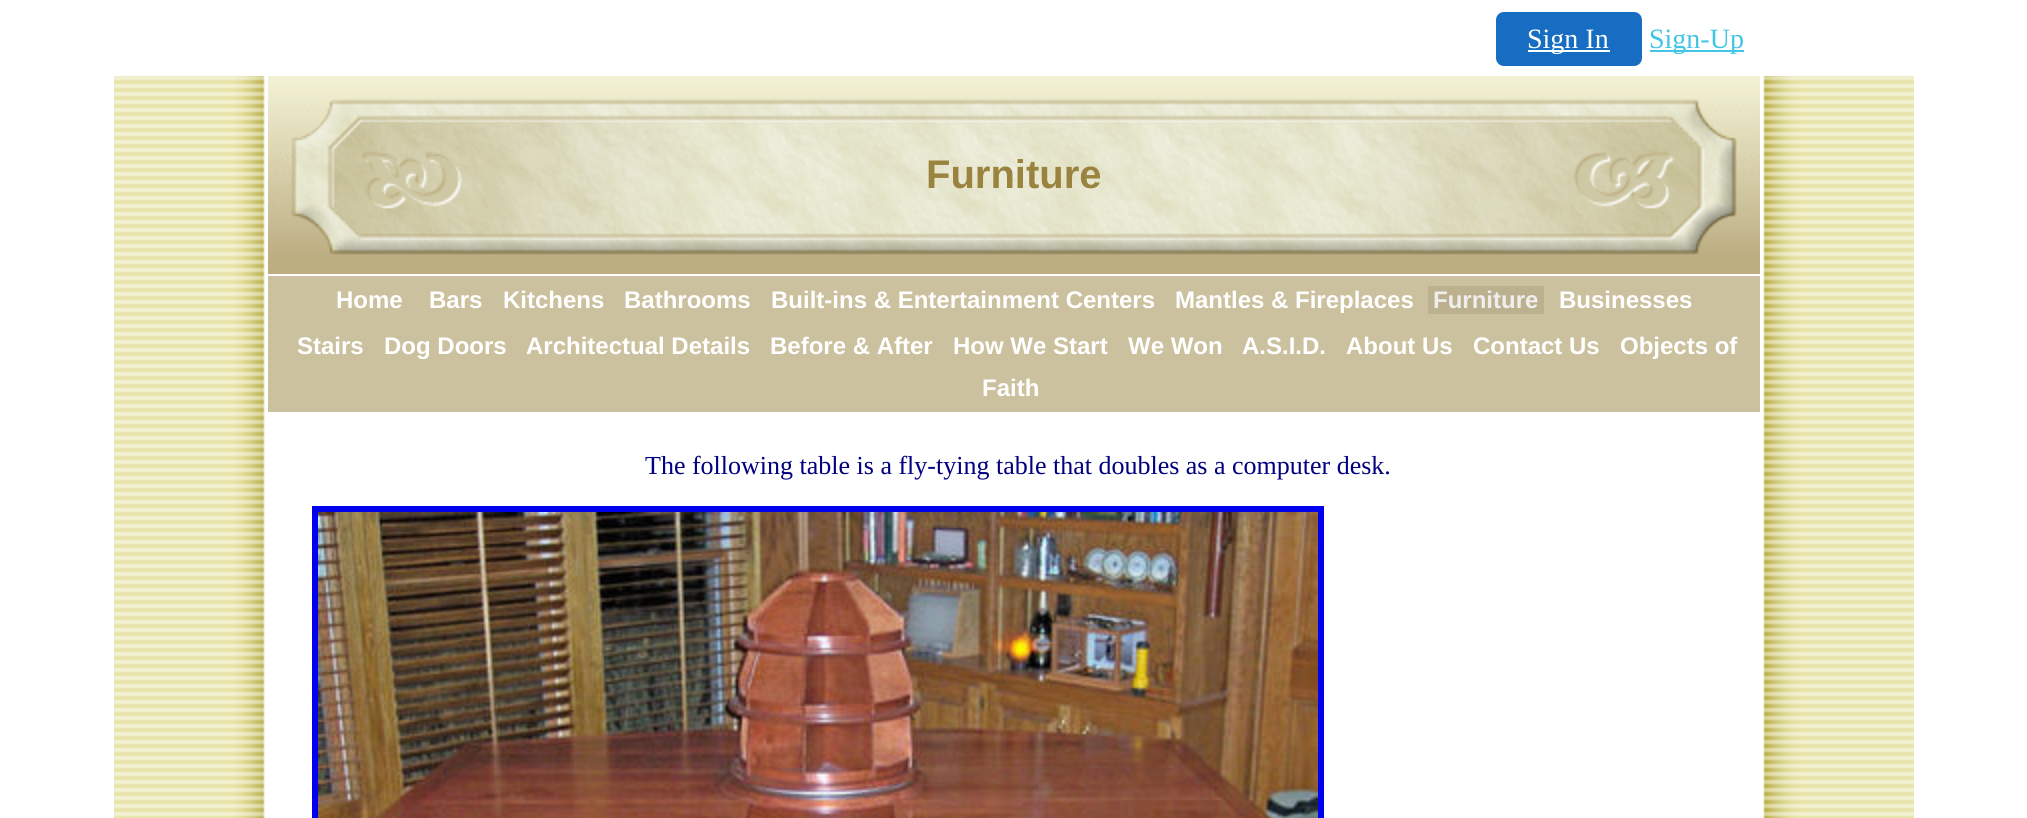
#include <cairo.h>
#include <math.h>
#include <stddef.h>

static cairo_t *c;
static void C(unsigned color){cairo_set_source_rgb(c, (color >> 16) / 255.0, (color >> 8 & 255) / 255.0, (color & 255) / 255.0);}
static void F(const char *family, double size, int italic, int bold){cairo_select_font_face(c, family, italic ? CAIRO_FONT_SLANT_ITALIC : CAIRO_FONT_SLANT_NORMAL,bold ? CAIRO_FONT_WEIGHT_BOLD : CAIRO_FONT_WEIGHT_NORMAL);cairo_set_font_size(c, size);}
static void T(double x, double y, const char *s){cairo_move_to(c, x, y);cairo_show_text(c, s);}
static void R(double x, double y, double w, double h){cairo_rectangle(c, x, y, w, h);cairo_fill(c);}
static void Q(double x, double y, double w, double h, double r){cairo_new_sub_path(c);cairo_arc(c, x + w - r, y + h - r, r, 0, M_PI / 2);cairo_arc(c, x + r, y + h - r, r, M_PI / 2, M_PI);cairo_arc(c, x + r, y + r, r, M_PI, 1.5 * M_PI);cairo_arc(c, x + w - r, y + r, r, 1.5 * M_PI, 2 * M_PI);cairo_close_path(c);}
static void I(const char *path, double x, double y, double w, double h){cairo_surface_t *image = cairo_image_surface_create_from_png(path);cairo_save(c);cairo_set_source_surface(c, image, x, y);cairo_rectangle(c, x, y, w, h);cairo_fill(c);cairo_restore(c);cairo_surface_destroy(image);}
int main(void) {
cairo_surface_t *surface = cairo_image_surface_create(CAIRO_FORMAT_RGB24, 2027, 818);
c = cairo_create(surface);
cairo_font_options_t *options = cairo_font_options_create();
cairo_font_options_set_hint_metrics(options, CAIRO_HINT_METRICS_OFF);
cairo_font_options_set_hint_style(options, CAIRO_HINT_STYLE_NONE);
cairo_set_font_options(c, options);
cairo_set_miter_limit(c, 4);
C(0xffffff);
cairo_paint(c);
C(0x166dc2);
Q(1497,13,144,52,7);
cairo_fill_preserve(c);
cairo_stroke(c);
C(0xffffff);
R(1528,50,82,2);
F("Liberation Serif",28,0,0);
T(1527,48,"Sign In");
C(0x41c5e4);
R(1650,50,94,2);
T(1649,48,"Sign-Up");
I("1.png",114,76,1800,742);
I("2.png",268,76,1492,198);
F("Liberation Sans",40,0,1);
C(0x99833e);
T(926,188,"Furniture");
C(0xccc19e);
R(268,276,1492,136);
F("Liberation Sans",24,0,1);
C(0xffffff);
T(336,308,"Home");
T(429,308,"Bars");
T(503,308,"Kitchens");
T(624,308,"Bathrooms");
T(771,308,"Built-ins & Entertainment Centers");
T(1175,308,"Mantles & Fireplaces");
C(0xbcb18e);
R(1428,286,116,28);
C(0xeeeeee);
T(1433,308,"Furniture");
C(0xffffff);
T(1559,308,"Businesses");
T(297,354,"Stairs");
T(384,354,"Dog Doors");
T(526,354,"Architectual Details");
T(770,354,"Before & After");
T(953,354,"How We Start");
T(1128,354,"We Won");
T(1242,354,"A.S.I.D.");
T(1346,354,"About Us");
T(1473,354,"Contact Us");
T(1620,354,"Objects of");
T(982,396,"Faith");
F("Liberation Serif",26,0,0);
C(0x000080);
T(645,474,"The following table is a fly-tying table that doubles as a computer desk.");
cairo_rectangle(c,315,509,1006,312);
C(0x0000ee);
cairo_set_line_width(c,6);
cairo_stroke(c);
I("3.png",318,512,1000,306);
cairo_surface_write_to_png(surface, "o.png");
cairo_font_options_destroy(options);
cairo_destroy(c);
cairo_surface_destroy(surface);
return 0;
}
